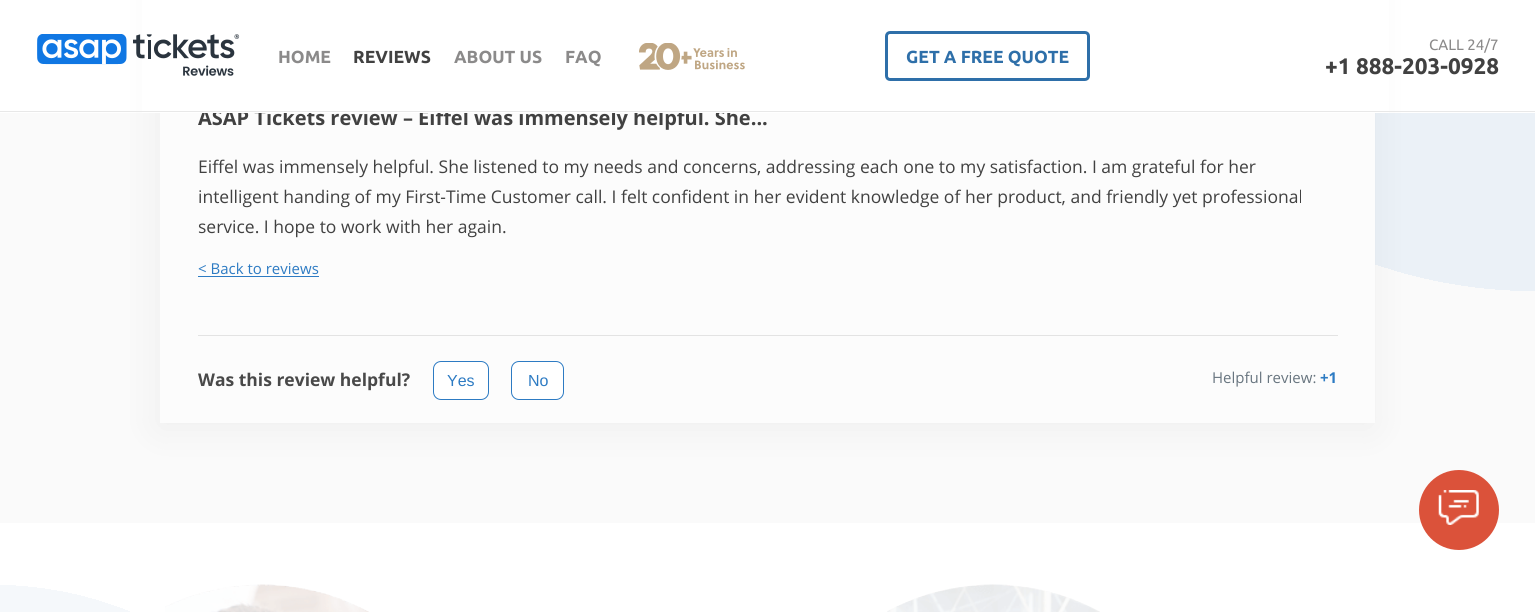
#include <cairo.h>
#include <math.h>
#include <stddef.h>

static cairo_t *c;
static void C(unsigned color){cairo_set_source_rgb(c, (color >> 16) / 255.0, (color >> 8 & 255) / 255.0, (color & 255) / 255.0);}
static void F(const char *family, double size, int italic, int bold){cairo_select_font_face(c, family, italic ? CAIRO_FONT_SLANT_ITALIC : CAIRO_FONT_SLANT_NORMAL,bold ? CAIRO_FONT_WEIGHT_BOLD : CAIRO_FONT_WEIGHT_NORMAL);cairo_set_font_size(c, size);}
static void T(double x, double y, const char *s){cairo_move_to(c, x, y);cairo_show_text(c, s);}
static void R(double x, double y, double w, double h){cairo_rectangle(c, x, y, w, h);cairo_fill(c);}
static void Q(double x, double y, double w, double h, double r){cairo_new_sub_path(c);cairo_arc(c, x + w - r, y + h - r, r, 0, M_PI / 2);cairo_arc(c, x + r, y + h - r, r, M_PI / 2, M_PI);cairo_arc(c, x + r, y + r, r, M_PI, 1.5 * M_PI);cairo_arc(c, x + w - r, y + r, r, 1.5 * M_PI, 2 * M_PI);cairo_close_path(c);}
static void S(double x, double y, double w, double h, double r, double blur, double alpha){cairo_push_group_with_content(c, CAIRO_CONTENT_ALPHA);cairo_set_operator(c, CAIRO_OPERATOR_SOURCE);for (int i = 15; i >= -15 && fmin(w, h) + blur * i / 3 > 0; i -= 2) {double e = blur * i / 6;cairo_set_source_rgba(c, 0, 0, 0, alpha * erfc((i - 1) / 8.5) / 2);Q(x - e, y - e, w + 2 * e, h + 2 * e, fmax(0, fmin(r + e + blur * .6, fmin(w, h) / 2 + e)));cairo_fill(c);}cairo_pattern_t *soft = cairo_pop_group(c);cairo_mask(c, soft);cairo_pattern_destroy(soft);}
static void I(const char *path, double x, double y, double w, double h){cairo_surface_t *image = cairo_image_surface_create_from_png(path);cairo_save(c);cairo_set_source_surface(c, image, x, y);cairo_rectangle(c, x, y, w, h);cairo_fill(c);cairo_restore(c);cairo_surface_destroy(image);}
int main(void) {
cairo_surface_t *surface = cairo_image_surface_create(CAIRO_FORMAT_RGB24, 1535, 612);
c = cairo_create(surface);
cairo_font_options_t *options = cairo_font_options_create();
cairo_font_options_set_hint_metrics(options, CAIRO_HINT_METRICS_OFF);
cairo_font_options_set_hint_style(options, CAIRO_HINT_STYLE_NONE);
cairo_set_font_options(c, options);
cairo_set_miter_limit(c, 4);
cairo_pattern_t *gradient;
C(0xffffff);
cairo_paint(c);
gradient = cairo_pattern_create_radial(1535,-201,0,1535,-201,1697);
cairo_pattern_add_color_stop_rgba(gradient,.29,0.922,0.945,0.969,1);
cairo_pattern_add_color_stop_rgba(gradient,.29,0.98,0.98,0.98,1);
cairo_set_source(c,gradient);
cairo_pattern_destroy(gradient);
R(0,113,1535,410);
C(0x000000);
S(158,-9,1215,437,0,19,.05);
C(0xfcfcfc);
R(160,113,1215,310);
F("Open Sans",20,0,1);
C(0x414141);
T(198,125,"ASAP Tickets review – Eiffel was immensely helpful. She...");
C(0xffffff);
R(142,0,1247,113);
C(0xe8e8e8);
R(0,111,1535,1);
I("1.png",37,34,203,42);
F("Ubuntu",17.5,0,1);
C(0x8b8a8a);
T(278,63,"HOME");
C(0x414141);
T(353,63,"REVIEWS");
C(0x8b8a8a);
T(454,63,"ABOUT US");
T(565,63,"FAQ");
I("2.png",639,43,106,27);
Q(886.5,32.5,202,47,3.5);
C(0x2e6fa9);
cairo_set_line_width(c,3);
cairo_stroke(c);
T(906,63,"GET A FREE QUOTE");
F("Ubuntu",15,0,0);
C(0x8b8a8a);
T(1429,50,"CALL 24/7");
F("Ubuntu",22.5,0,1);
C(0x414141);
T(1325,74,"+1 888-203-0928");
F("Open Sans",17.5,0,0);
T(198,173,"Eiffel was immensely helpful. She listened to my needs and concerns, addressing each one to my satisfaction. I am grateful for her");
T(198,203,"intelligent handing of my First-Time Customer call. I felt confident in her evident knowledge of her product, and friendly yet professional");
T(198,233,"service. I hope to work with her again.");
F("Open Sans",15,0,0);
C(0x2d7bc3);
T(198,274,"< Back to reviews");
R(198,276,121,1);
C(0xe3e3e3);
R(198,335,1140,1);
F("Open Sans",17.5,0,1);
C(0x494949);
T(198,386,"Was this review helpful?");
C(0xffffff);
Q(433.5,361.5,55,38,7.5);
cairo_fill_preserve(c);
C(0x2d7bc3);
cairo_set_line_width(c,1);
cairo_stroke(c);
F("Liberation Sans",16,0,0);
T(447,386,"Yes");
C(0xffffff);
Q(511.5,361.5,52,38,7.5);
cairo_fill_preserve(c);
C(0x2d7bc3);
cairo_stroke(c);
T(528,386,"No");
F("Open Sans",15,0,0);
C(0x68757f);
T(1212,383,"Helpful review:");
F("Open Sans",15,0,1);
C(0x2d7bc3);
T(1320,383,"+1");
C(0xdb523a);
cairo_new_path(c);
cairo_arc(c,1459,510,40,0,2 * M_PI);
cairo_fill(c);
I("3.png",1438,490,41,35);
gradient = cairo_pattern_create_radial(-7.5,953,0,-7.5,953,1601);
cairo_pattern_add_color_stop_rgba(gradient,.23,0.961,0.973,0.984,1);
cairo_pattern_add_color_stop_rgba(gradient,.23,1,1,1,1);
cairo_set_source(c,gradient);
cairo_pattern_destroy(gradient);
R(0,585,131,27);
I("4.png",165,584,204,28);
I("5.png",887,584,213,28);
cairo_surface_write_to_png(surface, "o.png");
cairo_font_options_destroy(options);
cairo_destroy(c);
cairo_surface_destroy(surface);
return 0;
}
